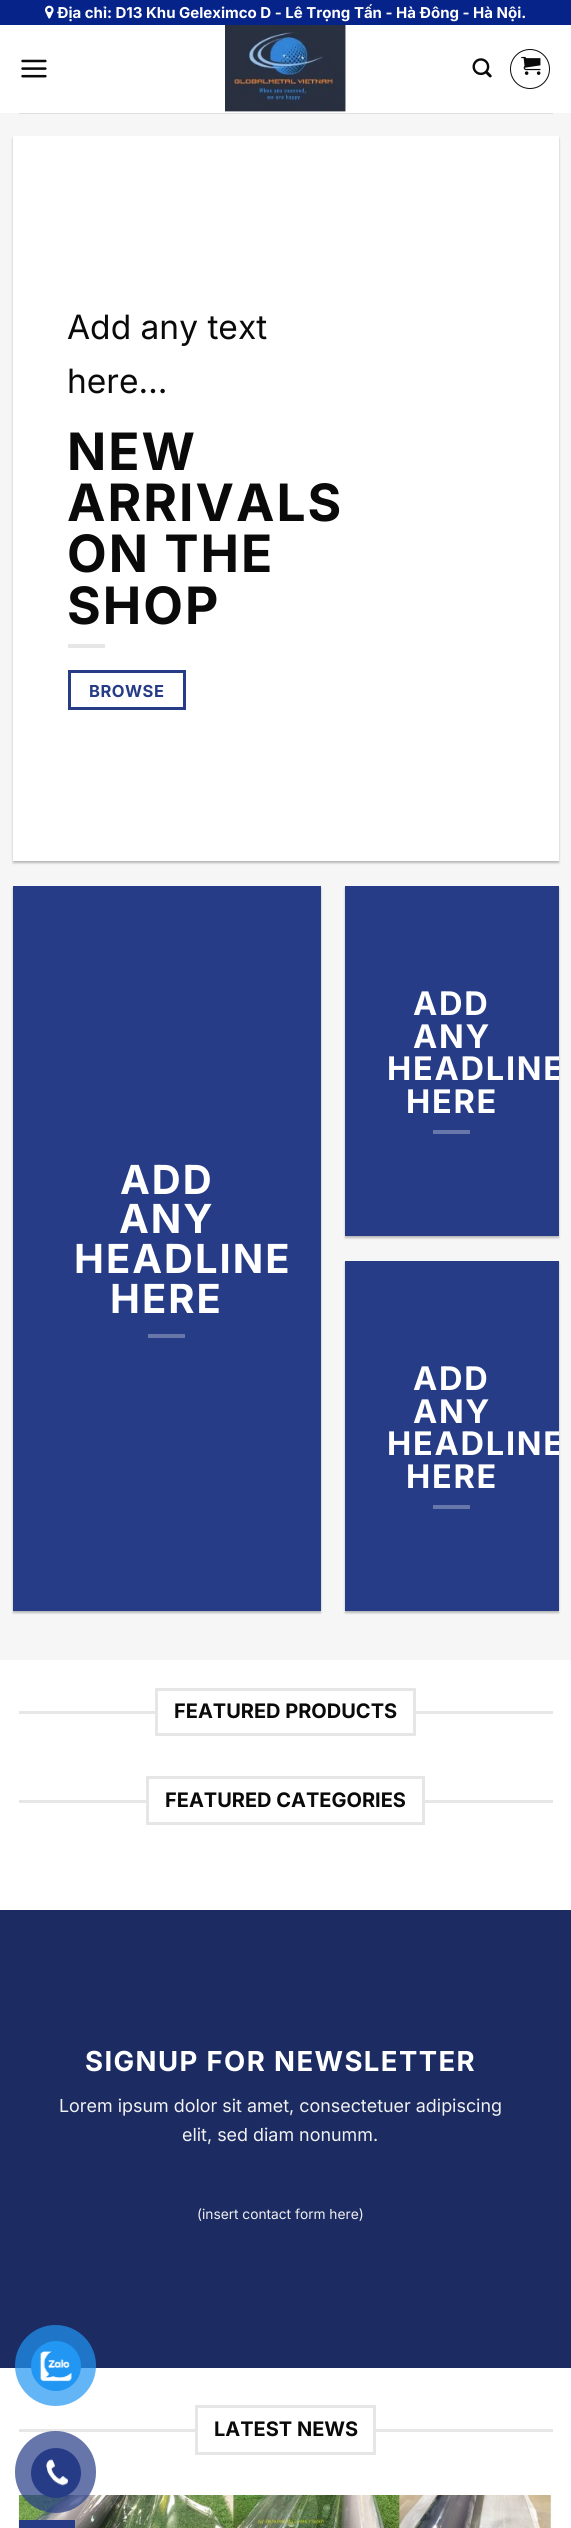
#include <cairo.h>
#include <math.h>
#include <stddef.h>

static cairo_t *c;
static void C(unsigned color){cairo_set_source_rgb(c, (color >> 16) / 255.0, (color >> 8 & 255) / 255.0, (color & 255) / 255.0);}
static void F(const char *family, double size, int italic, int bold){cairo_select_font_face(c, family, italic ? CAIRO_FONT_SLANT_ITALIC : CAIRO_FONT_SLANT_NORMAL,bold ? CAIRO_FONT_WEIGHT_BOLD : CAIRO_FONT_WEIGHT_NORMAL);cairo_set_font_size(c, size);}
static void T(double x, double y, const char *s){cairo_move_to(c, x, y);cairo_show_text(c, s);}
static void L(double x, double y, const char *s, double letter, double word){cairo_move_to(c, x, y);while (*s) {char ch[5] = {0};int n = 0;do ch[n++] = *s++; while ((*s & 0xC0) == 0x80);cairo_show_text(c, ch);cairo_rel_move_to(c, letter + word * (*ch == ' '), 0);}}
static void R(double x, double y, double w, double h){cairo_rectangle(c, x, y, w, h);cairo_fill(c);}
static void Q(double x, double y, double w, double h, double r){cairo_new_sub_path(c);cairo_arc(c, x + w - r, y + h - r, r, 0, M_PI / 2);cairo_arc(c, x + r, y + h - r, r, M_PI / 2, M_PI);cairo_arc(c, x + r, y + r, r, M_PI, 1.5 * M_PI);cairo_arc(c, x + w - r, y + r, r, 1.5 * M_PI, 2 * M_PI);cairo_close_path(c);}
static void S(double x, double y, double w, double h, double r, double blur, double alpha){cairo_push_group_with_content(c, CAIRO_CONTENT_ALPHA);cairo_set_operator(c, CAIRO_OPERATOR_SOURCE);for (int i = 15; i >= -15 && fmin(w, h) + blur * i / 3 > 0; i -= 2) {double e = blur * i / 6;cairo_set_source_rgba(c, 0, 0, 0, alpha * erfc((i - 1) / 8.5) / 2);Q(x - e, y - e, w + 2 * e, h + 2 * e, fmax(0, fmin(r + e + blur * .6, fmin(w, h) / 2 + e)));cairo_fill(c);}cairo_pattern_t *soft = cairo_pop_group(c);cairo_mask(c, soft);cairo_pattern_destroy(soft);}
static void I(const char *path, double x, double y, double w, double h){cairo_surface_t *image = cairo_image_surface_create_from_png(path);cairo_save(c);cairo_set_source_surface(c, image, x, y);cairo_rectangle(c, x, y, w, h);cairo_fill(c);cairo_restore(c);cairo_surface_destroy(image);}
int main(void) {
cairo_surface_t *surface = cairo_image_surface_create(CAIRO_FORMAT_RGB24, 571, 2528);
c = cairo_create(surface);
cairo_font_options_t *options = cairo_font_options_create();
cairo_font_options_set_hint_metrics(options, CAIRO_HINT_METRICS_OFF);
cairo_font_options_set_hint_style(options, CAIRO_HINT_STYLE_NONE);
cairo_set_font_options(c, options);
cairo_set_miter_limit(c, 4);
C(0xffffff);
cairo_paint(c);
C(0x1c2c63);
R(0,1910,571,458);
cairo_set_source_rgba(c,0.129,0.588,0.953,0.7);
cairo_arc(c,55.5,2365.5,40.5,0,2 * M_PI);
cairo_fill(c);
C(0x2196f3);
cairo_arc(c,56,2366,25,0,2 * M_PI);
cairo_fill(c);
I("1.png",39,2351,33,31);
C(0xe7e7e7);
R(19,2429,176,3);
I("8.png",18,2495,534,33);
cairo_set_source_rgba(c,0.149,0.235,0.529,0.7);
Q(15,2431,81,82,40.5);
cairo_fill(c);
C(0x263c87);
cairo_arc(c,56,2473,25,0,2 * M_PI);
cairo_fill(c);
I("2.png",46,2459,22,27);
C(0x06238a);
R(0,0,571,25);
I("3.png",45,5,9,14);
F("Inter",15,0,1);
C(0xffffff);
T(57,18,"Địa chỉ: D13 Khu Geleximco D - Lê Trọng Tấn - Hà Đông - Hà Nội.");
I("4.png",21,59,26,19);
I("5.png",225,25,121,88);
I("6.png",472,58,20,20);
cairo_arc(c,530,69,19.5,0,2 * M_PI);
C(0x0a0a0a);
cairo_set_line_width(c,1);
cairo_stroke(c);
I("7.png",521,56,20,19);
C(0xf6f6f6);
R(0,113,571,1547);
C(0xdedede);
R(19,113,534,1);
C(0x000000);
S(13,138,546,725,0,1,.24);
S(15,140,541,720,0,2,.12);
C(0xffffff);
R(13,136,546,725);
F("Inter",33.5,0,0);
C(0x0a0a0a);
T(67,339,"Add any text");
T(67,393,"here…");
F("Inter",51.5,0,1);
L(67,470,"NEW",2,0);
L(67,521,"ARRIVALS",2,0);
L(67,572,"ON THE",2,0);
L(67,624,"SHOP",2,0);
C(0xe6e6e6);
R(68,644,37,4);
cairo_rectangle(c,69.5,671.5,115,37);
C(0x263c86);
cairo_set_line_width(c,3);
cairo_stroke(c);
F("Inter",16.5,0,1);
L(89,697,"BROWSE",.5,0);
C(0x000000);
S(345,888,214,350,0,1,.24);
S(348,890,208,345,0,2,.12);
C(0x263c86);
R(345,886,214,350);
F("Inter",32.5,0,1);
C(0xffffff);
L(413,1015,"ADD",1.75,0);
L(413,1048,"ANY",1.75,0);
cairo_save(c);
cairo_rectangle(c,345,886,214,350);
cairo_clip(c);
L(387,1080,"HEADLINE",1.75,0);
cairo_restore(c);
L(406,1113,"HERE",1.75,0);
C(0x6777aa);
R(433,1130,37,4);
C(0x000000);
S(13,888,308,725,0,1,.24);
S(15,890,304,720,0,2,.12);
C(0x263c86);
R(13,886,308,725);
F("Inter",40,0,1);
C(0xffffff);
L(120,1194,"ADD",2,0);
L(119,1233,"ANY",2,0);
L(74,1273,"HEADLINE",2,0);
L(110,1313,"HERE",2,0);
C(0x6777aa);
R(148,1334,37,4);
C(0x000000);
S(345,1263,214,350,0,1,.24);
S(348,1265,208,345,0,2,.12);
C(0x263c86);
R(345,1261,214,350);
F("Inter",32.5,0,1);
C(0xffffff);
L(413,1390,"ADD",1.75,0);
L(413,1423,"ANY",1.75,0);
cairo_save(c);
cairo_rectangle(c,345,1261,214,350);
cairo_clip(c);
L(387,1455,"HEADLINE",1.75,0);
cairo_restore(c);
L(406,1488,"HERE",1.75,0);
C(0x6777aa);
R(433,1505,37,4);
C(0xe7e7e7);
R(19,1711,136,3);
cairo_rectangle(c,156.5,1689.5,258,45);
C(0xe6e6e6);
cairo_stroke(c);
F("Inter",20,0,1);
C(0x0a0a0a);
T(174,1718,"FEATURED PRODUCTS");
C(0xe7e7e7);
R(416,1711,137,3);
R(19,1800,127,3);
cairo_rectangle(c,147.5,1777.5,276,46);
C(0xe6e6e6);
cairo_stroke(c);
C(0x0a0a0a);
T(165,1807,"FEATURED CATEGORIES");
C(0xe7e7e7);
R(425,1800,128,3);
F("Inter",27.5,0,1);
C(0xffffff);
L(85,2071,"SIGNUP FOR NEWSLETTER",1.4,0);
F("Inter",17.9,0,0);
C(0xf1f1f1);
T(59,2112,"Lorem ipsum dolor sit amet, consectetuer adipiscing");
T(182,2141,"elit, sed diam nonumm.");
F("Inter",13.75,0,0);
T(197,2219,"(insert contact form here)");
cairo_rectangle(c,196.5,2406.5,178,47);
C(0xe6e6e6);
cairo_stroke(c);
F("Inter",20,0,1);
C(0x0a0a0a);
T(214,2436,"LATEST NEWS");
C(0xe7e7e7);
R(376,2429,177,3);
C(0x263c86);
R(19,2520,56,8);
cairo_surface_write_to_png(surface, "o.png");
cairo_font_options_destroy(options);
cairo_destroy(c);
cairo_surface_destroy(surface);
return 0;
}
